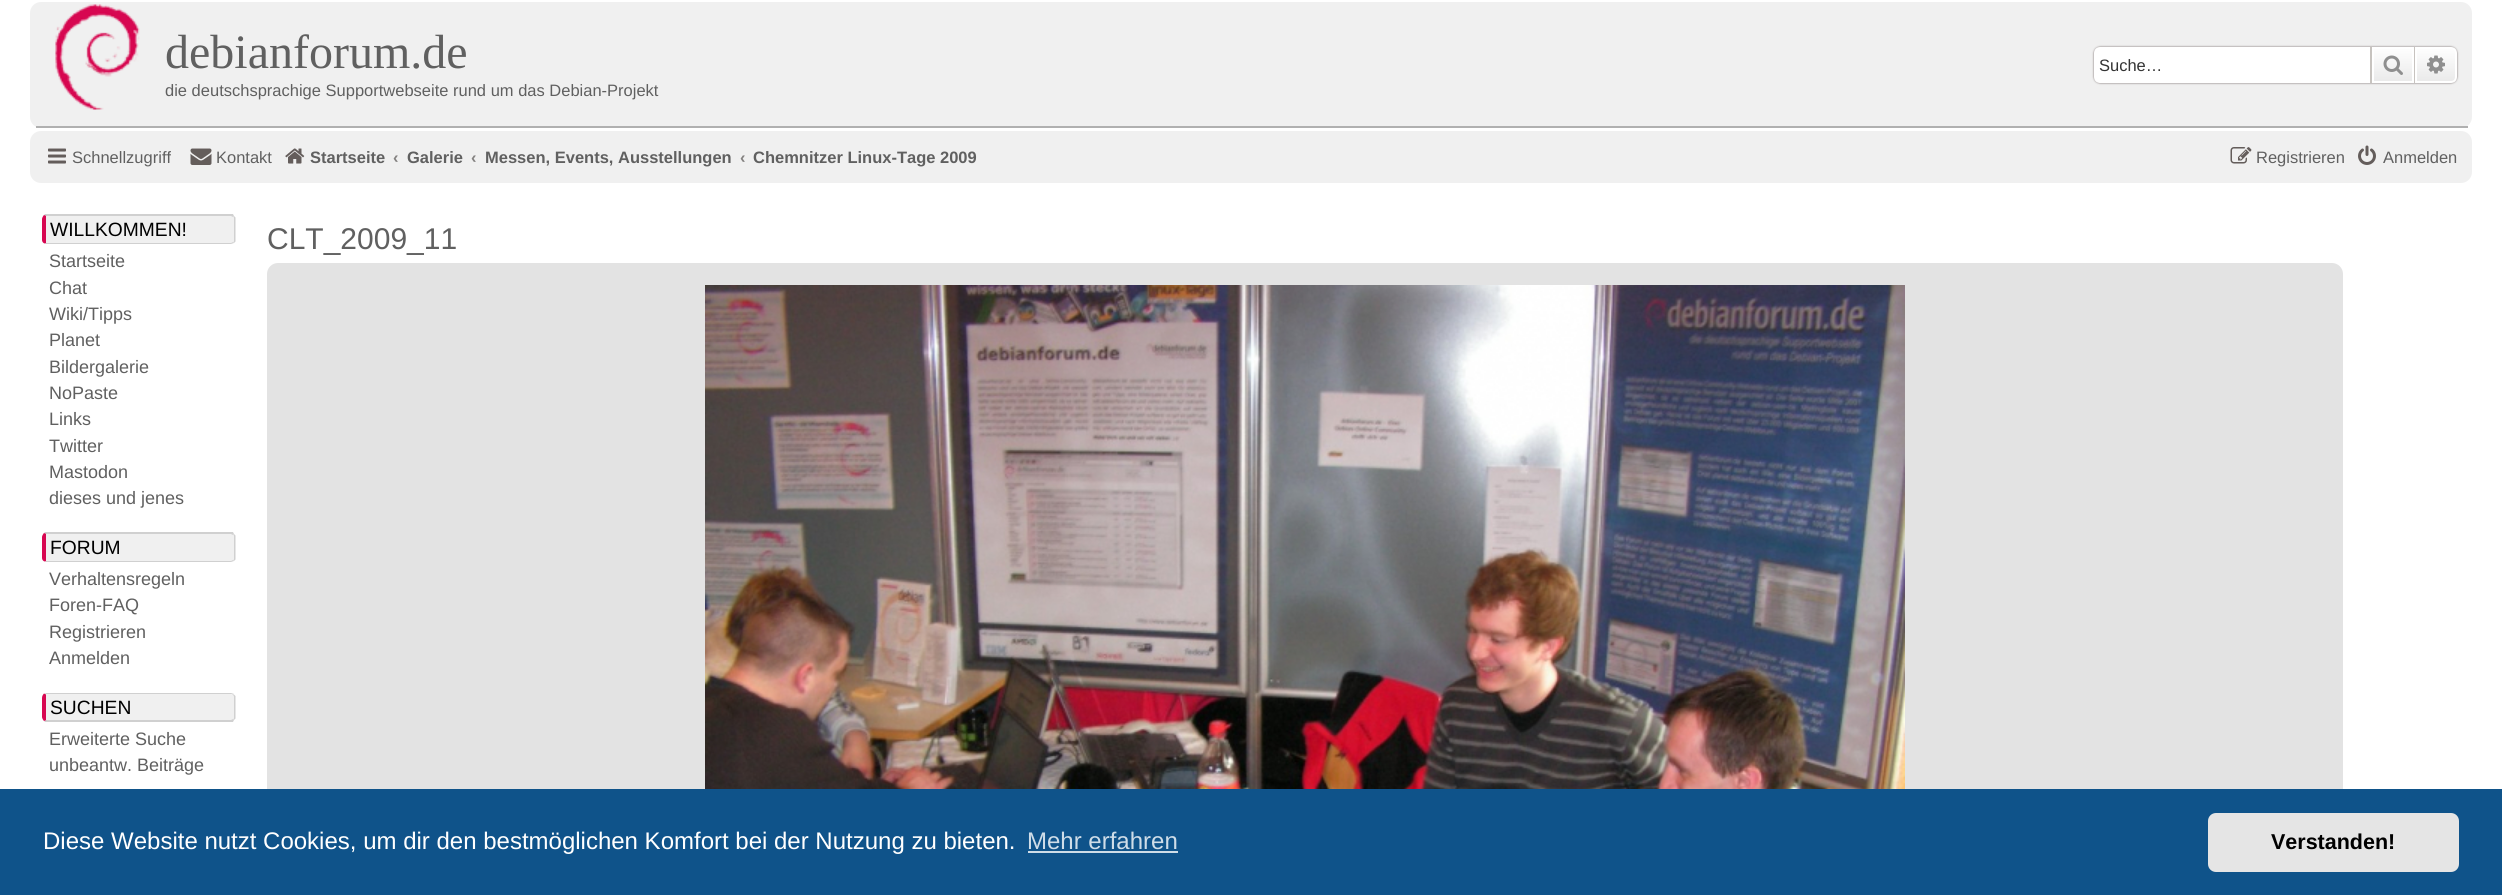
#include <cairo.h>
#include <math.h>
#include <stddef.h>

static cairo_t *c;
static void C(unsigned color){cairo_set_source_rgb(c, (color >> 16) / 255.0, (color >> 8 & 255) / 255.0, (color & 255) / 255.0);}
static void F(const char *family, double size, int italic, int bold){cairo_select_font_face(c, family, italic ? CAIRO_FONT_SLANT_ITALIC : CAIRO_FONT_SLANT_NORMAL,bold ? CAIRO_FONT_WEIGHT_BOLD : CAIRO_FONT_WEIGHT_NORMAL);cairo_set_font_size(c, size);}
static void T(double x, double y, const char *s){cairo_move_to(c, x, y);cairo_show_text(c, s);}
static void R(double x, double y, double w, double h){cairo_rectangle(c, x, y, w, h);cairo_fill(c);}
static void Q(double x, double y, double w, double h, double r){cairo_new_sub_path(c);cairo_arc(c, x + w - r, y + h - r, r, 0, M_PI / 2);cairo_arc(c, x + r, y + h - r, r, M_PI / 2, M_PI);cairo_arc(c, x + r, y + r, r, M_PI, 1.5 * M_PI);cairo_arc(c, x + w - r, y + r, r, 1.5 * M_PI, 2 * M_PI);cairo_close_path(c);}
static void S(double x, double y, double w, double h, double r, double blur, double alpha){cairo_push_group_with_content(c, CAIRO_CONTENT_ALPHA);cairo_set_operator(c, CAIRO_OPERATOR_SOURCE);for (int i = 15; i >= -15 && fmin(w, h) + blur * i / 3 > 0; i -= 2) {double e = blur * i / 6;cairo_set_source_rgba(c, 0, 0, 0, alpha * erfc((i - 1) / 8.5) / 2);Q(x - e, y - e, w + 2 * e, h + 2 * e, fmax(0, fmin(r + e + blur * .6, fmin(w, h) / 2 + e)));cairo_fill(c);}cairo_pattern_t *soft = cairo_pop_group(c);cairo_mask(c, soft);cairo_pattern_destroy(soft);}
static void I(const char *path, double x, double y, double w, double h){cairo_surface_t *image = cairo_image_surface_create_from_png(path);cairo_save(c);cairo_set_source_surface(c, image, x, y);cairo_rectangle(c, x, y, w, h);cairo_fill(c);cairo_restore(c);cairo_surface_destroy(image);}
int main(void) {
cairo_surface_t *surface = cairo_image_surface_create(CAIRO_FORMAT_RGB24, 2502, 895);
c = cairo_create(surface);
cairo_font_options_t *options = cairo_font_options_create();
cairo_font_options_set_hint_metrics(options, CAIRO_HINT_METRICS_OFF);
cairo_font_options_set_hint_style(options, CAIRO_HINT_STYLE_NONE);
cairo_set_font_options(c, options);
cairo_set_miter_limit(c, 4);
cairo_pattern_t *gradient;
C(0xffffff);
cairo_paint(c);
C(0xf0f0f0);
Q(30,2,2442,126,11);
cairo_fill(c);
C(0xb0b0b0);
R(36,126,2432,2);
I("1.png",55,4,85,106);
F("Liberation Serif",48,0,0);
C(0x606060);
T(165,68,"debianforum.de");
F("Liberation Sans",16.5,0,0);
T(165,96,"die deutschsprachige Supportwebseite rund um das Debian-Projekt");
C(0x746867);
S(2094,47,363,36,6,1,1);
C(0xffffff);
cairo_new_path(c);
cairo_move_to(c,2100,47);
cairo_line_to(c,2370,47);
cairo_line_to(c,2370,83);
cairo_line_to(c,2100,83);
cairo_curve_to(c,2096.5,83,2094,80.5,2094,77);
cairo_line_to(c,2094,53);
cairo_curve_to(c,2094,49.5,2096.5,47,2100,47);
cairo_close_path(c);
cairo_fill(c);
C(0x333333);
T(2099,71,"Suche…");
gradient = cairo_pattern_create_linear(2393,47,2393,83);
cairo_pattern_add_color_stop_rgba(gradient,0,1,1,1,1);
cairo_pattern_add_color_stop_rgba(gradient,1,0.914,0.914,0.914,1);
cairo_set_source(c,gradient);
cairo_pattern_destroy(gradient);
R(2374,49,38,32);
cairo_rectangle(c,2373,48,40,34);
C(0xffffff);
cairo_stroke(c);
C(0xc7c3bf);
R(2414,47,1,36);
R(2370,47,2,36);
I("2.png",2383,55,20,20);
gradient = cairo_pattern_create_linear(2436,47,2436,83);
cairo_pattern_add_color_stop_rgba(gradient,0,1,1,1,1);
cairo_pattern_add_color_stop_rgba(gradient,1,0.914,0.914,0.914,1);
cairo_set_source(c,gradient);
cairo_pattern_destroy(gradient);
cairo_new_path(c);
cairo_move_to(c,2416,48);
cairo_line_to(c,2451,48);
cairo_curve_to(c,2454,48,2456,50,2456,53);
cairo_line_to(c,2456,77);
cairo_curve_to(c,2456,80,2454,82,2451,82);
cairo_line_to(c,2416,82);
cairo_close_path(c);
cairo_fill_preserve(c);
C(0xffffff);
cairo_stroke(c);
I("3.png",2427,55,18,19);
C(0xf0f0f0);
Q(30,131,2442,52,11);
cairo_fill(c);
I("4.png",48,148,18,16);
C(0x606060);
T(72,163,"Schnellzugriff");
I("5.png",190,148,22,17);
T(216,163,"Kontakt");
I("6.png",285,148,20,16);
F("Liberation Sans",16.5,0,1);
T(310,163,"Startseite");
C(0x848281);
T(393,163,"‹");
C(0x606060);
T(407,163,"Galerie");
C(0x848281);
T(471,163,"‹");
C(0x606060);
T(485,163,"Messen, Events, Ausstellungen");
C(0x848281);
T(740,163,"‹");
C(0x606060);
T(753,163,"Chemnitzer Linux-Tage 2009");
I("7.png",2230,147,22,17);
F("Liberation Sans",16.5,0,0);
T(2256,163,"Registrieren");
I("8.png",2358,145,18,20);
T(2383,163,"Anmelden");
C(0xf0f0f0);
cairo_new_path(c);
cairo_move_to(c,46,216);
cairo_line_to(c,231,216);
cairo_curve_to(c,233,216,234,217,234,219);
cairo_line_to(c,234,240);
cairo_curve_to(c,234,242,233,243,231,243);
cairo_line_to(c,46,243);
cairo_close_path(c);
cairo_fill(c);
C(0xd0d0d0);
cairo_new_path(c);
cairo_move_to(c,44,215);
cairo_line_to(c,45,214);
cairo_line_to(c,233,214);
cairo_line_to(c,234,216);
cairo_line_to(c,233,217);
cairo_line_to(c,231,216);
cairo_line_to(c,46,216);
cairo_close_path(c);
cairo_fill(c);
cairo_new_path(c);
cairo_move_to(c,235.5,241.5);
cairo_line_to(c,234,243);
cairo_line_to(c,233,242);
cairo_curve_to(c,234,242,234,241,234,240);
cairo_line_to(c,234,219);
cairo_curve_to(c,234,218,234,217,233,217);
cairo_line_to(c,234,216);
cairo_line_to(c,235.5,217.5);
cairo_close_path(c);
cairo_fill(c);
cairo_new_path(c);
cairo_move_to(c,234,243);
cairo_line_to(c,231,244);
cairo_line_to(c,45,244);
cairo_line_to(c,46,243);
cairo_line_to(c,231,243);
cairo_line_to(c,233,242);
cairo_close_path(c);
cairo_fill(c);
C(0xd70751);
cairo_new_path(c);
cairo_move_to(c,46,216);
cairo_line_to(c,46.5,216);
cairo_line_to(c,44,215);
cairo_curve_to(c,43,216,42,218,42,219);
cairo_line_to(c,42,240);
cairo_curve_to(c,42,241.5,43,243,44.5,243.5);
cairo_line_to(c,46.5,243);
cairo_line_to(c,46,243);
cairo_close_path(c);
cairo_fill(c);
F("Liberation Sans",19.25,0,0);
C(0x000000);
T(50,236,"WILLKOMMEN!");
F("Liberation Sans",18,0,0);
C(0x606060);
T(49,267,"Startseite");
T(49,294,"Chat");
T(49,320,"Wiki/Tipps");
T(49,346,"Planet");
T(49,373,"Bildergalerie");
T(49,399,"NoPaste");
T(49,425,"Links");
T(49,452,"Twitter");
T(49,478,"Mastodon");
T(49,504,"dieses und jenes");
C(0xf0f0f0);
cairo_new_path(c);
cairo_move_to(c,46,534);
cairo_line_to(c,231,534);
cairo_curve_to(c,233,534,234,535,234,537);
cairo_line_to(c,234,558);
cairo_curve_to(c,234,560,233,561,231,561);
cairo_line_to(c,46,561);
cairo_close_path(c);
cairo_fill(c);
C(0xd0d0d0);
cairo_new_path(c);
cairo_move_to(c,44,533);
cairo_line_to(c,45,532);
cairo_line_to(c,233,532);
cairo_line_to(c,234,534);
cairo_line_to(c,233,535);
cairo_line_to(c,231,534);
cairo_line_to(c,46,534);
cairo_close_path(c);
cairo_fill(c);
cairo_new_path(c);
cairo_move_to(c,235.5,559.5);
cairo_line_to(c,234,561);
cairo_line_to(c,233,560);
cairo_curve_to(c,234,560,234,559,234,558);
cairo_line_to(c,234,537);
cairo_curve_to(c,234,536,234,535,233,535);
cairo_line_to(c,234,534);
cairo_line_to(c,235.5,535.5);
cairo_close_path(c);
cairo_fill(c);
cairo_new_path(c);
cairo_move_to(c,234,561);
cairo_line_to(c,231,562);
cairo_line_to(c,45,562);
cairo_line_to(c,46,561);
cairo_line_to(c,231,561);
cairo_line_to(c,233,560);
cairo_close_path(c);
cairo_fill(c);
C(0xd70751);
cairo_new_path(c);
cairo_move_to(c,46,534);
cairo_line_to(c,46.5,534);
cairo_line_to(c,44,533);
cairo_curve_to(c,43,534,42,536,42,537);
cairo_line_to(c,42,558);
cairo_curve_to(c,42,559.5,43,561,44.5,561.5);
cairo_line_to(c,46.5,561);
cairo_line_to(c,46,561);
cairo_close_path(c);
cairo_fill(c);
F("Liberation Sans",19.25,0,0);
C(0x000000);
T(50,554,"FORUM");
F("Liberation Sans",18,0,0);
C(0x606060);
T(49,585,"Verhaltensregeln");
T(49,611,"Foren-FAQ");
T(49,638,"Registrieren");
T(49,664,"Anmelden");
C(0xf0f0f0);
cairo_new_path(c);
cairo_move_to(c,46,694);
cairo_line_to(c,231,694);
cairo_curve_to(c,233,694,234,696,234,698);
cairo_line_to(c,234,717);
cairo_curve_to(c,234,719,233,720,231,720);
cairo_line_to(c,46,720);
cairo_close_path(c);
cairo_fill(c);
C(0xd0d0d0);
cairo_new_path(c);
cairo_move_to(c,46,693);
cairo_line_to(c,44,694);
cairo_line_to(c,46,694);
cairo_line_to(c,232,694);
cairo_line_to(c,233,695);
cairo_line_to(c,234,694);
cairo_line_to(c,231,693);
cairo_close_path(c);
cairo_fill(c);
cairo_new_path(c);
cairo_move_to(c,235.5,718.5);
cairo_line_to(c,234,720);
cairo_line_to(c,233,719);
cairo_curve_to(c,234,719,234,718,234,717);
cairo_line_to(c,234,698);
cairo_curve_to(c,234,697,234,696,233,695);
cairo_line_to(c,234,694.5);
cairo_line_to(c,235.5,696);
cairo_close_path(c);
cairo_fill(c);
cairo_new_path(c);
cairo_move_to(c,45,722);
cairo_line_to(c,44,721);
cairo_line_to(c,46,720);
cairo_line_to(c,231,720);
cairo_line_to(c,233,719);
cairo_line_to(c,234,720);
cairo_line_to(c,233,722);
cairo_close_path(c);
cairo_fill(c);
C(0xd70751);
cairo_new_path(c);
cairo_move_to(c,42,698);
cairo_line_to(c,42,717);
cairo_curve_to(c,42,718,43,720,44,721);
cairo_line_to(c,46.5,720);
cairo_line_to(c,46,720);
cairo_line_to(c,46,694.5);
cairo_line_to(c,44,693.5);
cairo_curve_to(c,43,694.5,42,696,42,698);
cairo_close_path(c);
cairo_fill(c);
F("Liberation Sans",19.25,0,0);
C(0x000000);
T(50,714,"SUCHEN");
F("Liberation Sans",18,0,0);
C(0x606060);
T(49,745,"Erweiterte Suche");
T(49,771,"unbeantw. Beiträge");
F("Liberation Sans",30,0,0);
T(267,249,"CLT_2009_11");
C(0xe3e3e3);
Q(267,263,2076,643,11);
cairo_fill(c);
I("9.png",705,285,1200,504);
C(0x0f538a);
R(0,789,2502,106);
F("Liberation Sans",24,0,0);
C(0xffffff);
T(43,849,"Diese Website nutzt Cookies, um dir den bestmöglichen Komfort bei der Nutzung zu bieten.");
C(0xcfdde8);
T(1027,849,"Mehr erfahren");
R(1028,851,150,2);
C(0xe5e5e5);
Q(2208,813,251,59,8);
cairo_fill(c);
F("Liberation Sans",21.5,0,1);
C(0x000000);
T(2271,849,"Verstanden!");
cairo_surface_write_to_png(surface, "o.png");
cairo_font_options_destroy(options);
cairo_destroy(c);
cairo_surface_destroy(surface);
return 0;
}
